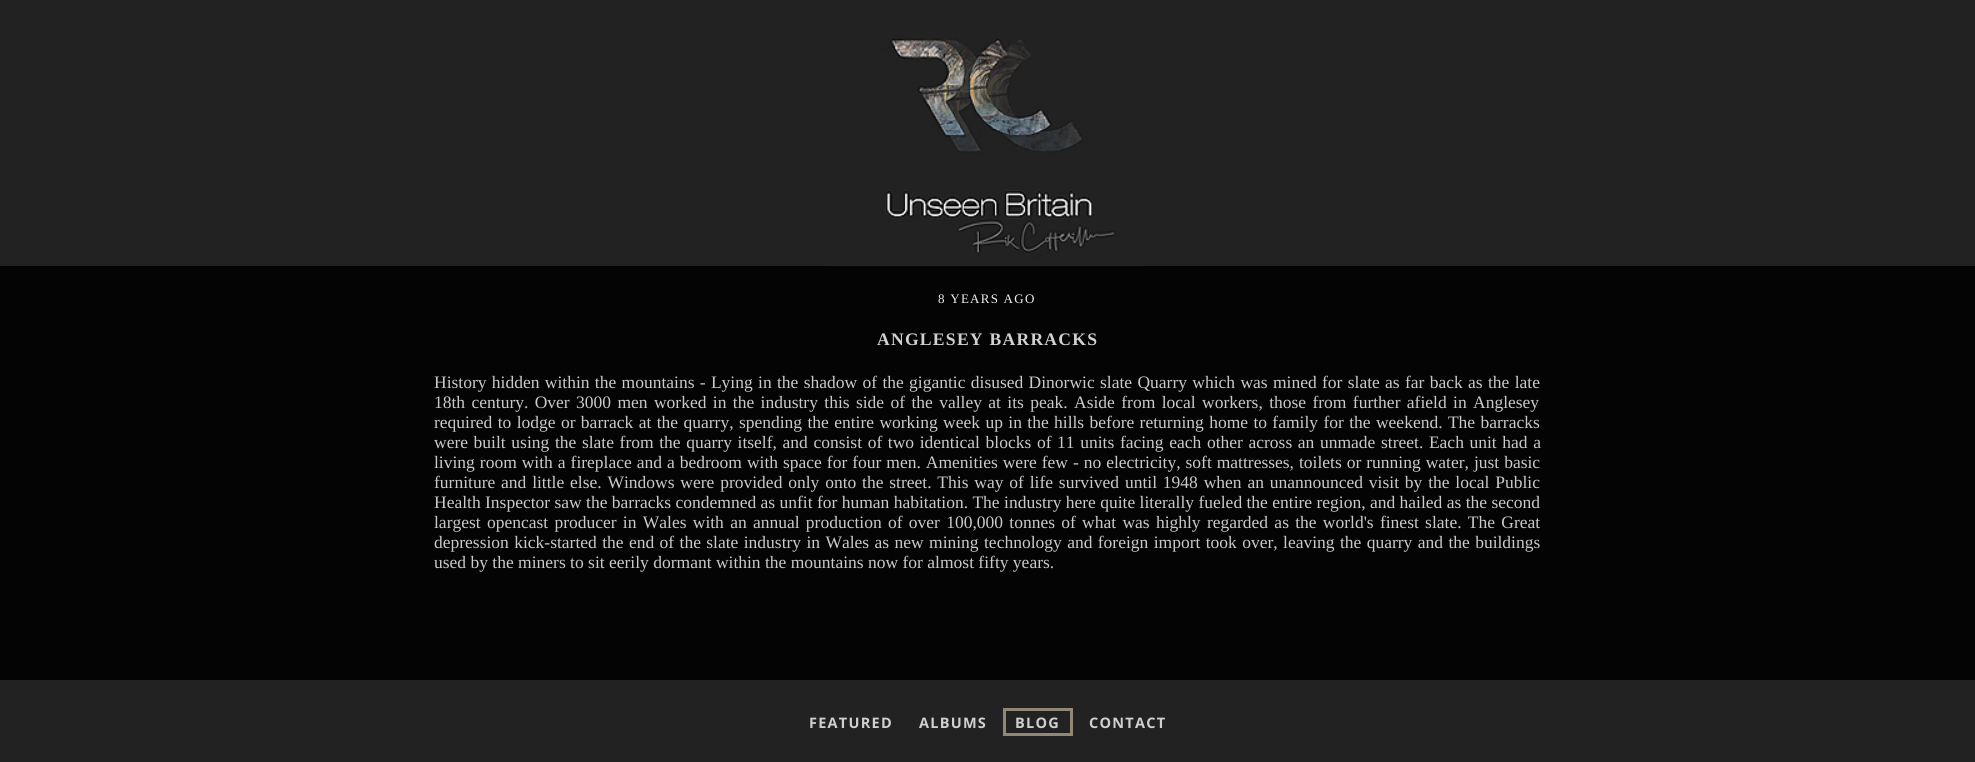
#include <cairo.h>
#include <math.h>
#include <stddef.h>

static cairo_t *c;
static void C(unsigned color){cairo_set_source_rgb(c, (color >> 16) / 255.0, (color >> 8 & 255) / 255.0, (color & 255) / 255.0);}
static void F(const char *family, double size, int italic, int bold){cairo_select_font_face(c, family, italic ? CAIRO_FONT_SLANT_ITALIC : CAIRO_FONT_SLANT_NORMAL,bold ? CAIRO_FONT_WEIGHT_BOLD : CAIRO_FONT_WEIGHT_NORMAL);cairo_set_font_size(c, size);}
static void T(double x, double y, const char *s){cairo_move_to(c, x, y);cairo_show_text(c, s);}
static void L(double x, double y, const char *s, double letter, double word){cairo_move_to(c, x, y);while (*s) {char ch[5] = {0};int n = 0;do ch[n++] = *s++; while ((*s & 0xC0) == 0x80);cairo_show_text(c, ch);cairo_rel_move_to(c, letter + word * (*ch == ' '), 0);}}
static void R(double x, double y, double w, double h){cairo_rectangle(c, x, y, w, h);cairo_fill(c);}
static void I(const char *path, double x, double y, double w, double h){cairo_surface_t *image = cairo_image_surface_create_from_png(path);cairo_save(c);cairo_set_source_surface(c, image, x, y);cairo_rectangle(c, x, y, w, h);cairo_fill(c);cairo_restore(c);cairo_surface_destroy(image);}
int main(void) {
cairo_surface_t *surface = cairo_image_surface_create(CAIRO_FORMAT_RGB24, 1975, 762);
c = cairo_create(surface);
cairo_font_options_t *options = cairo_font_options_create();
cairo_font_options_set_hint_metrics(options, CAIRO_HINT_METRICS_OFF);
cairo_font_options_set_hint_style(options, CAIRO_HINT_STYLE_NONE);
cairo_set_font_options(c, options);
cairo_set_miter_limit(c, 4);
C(0x040404);
cairo_paint(c);
C(0x222222);
R(0,0,1975,266);
I("1.png",831,38,313,229);
F("Liberation Serif",13,0,0);
C(0xeeeeee);
L(938,303,"8 YEARS AGO",1.25,0);
F("Liberation Serif",17.6,0,1);
C(0xd0d0d0);
L(877,345,"ANGLESEY BARRACKS",1.25,0);
F("Liberation Serif",17.5,0,0);
C(0xcacaca);
L(434,388,"History hidden within the mountains - Lying in the shadow of the gigantic disused Dinorwic slate Quarry which was mined for slate as far back as the late",0,.95);
L(434,408,"18th century. Over 3000 men worked in the industry this side of the valley at its peak. Aside from local workers, those from further afield in Anglesey",0,2);
L(434,428,"required to lodge or barrack at the quarry, spending the entire working week up in the hills before returning home to family for the weekend. The barracks",0,1);
L(434,448,"were built using the slate from the quarry itself, and consist of two identical blocks of 11 units facing each other across an unmade street. Each unit had a",0,1.25);
L(434,468,"living room with a fireplace and a bedroom with space for four men. Amenities were few - no electricity, soft mattresses, toilets or running water, just basic",0,.6);
L(434,488,"furniture and little else. Windows were provided only onto the street. This way of life survived until 1948 when an unannounced visit by the local Public",0,1.45);
T(434,508,"Health Inspector saw the barracks condemned as unfit for human habitation. The industry here quite literally fueled the entire region, and hailed as the second");
L(434,528,"largest opencast producer in Wales with an annual production of over 100,000 tonnes of what was highly regarded as the world's finest slate. The Great",0,1.9);
L(434,548,"depression kick-started the end of the slate industry in Wales as new mining technology and foreign import took over, leaving the quarry and the buildings",0,1);
T(434,568,"used by the miners to sit eerily dormant within the mountains now for almost fifty years.");
C(0x222222);
R(0,680,1975,82);
F("Open Sans",14.5,0,1);
C(0xd0d0d0);
L(809,728,"FEATURED",1.25,0);
L(919,728,"ALBUMS",1.25,0);
cairo_rectangle(c,1004.5,709.5,67,25);
C(0x918777);
cairo_set_line_width(c,3);
cairo_stroke(c);
C(0xd0d0d0);
L(1015,728,"BLOG",1.25,0);
L(1089,728,"CONTACT",1.25,0);
cairo_surface_write_to_png(surface, "o.png");
cairo_font_options_destroy(options);
cairo_destroy(c);
cairo_surface_destroy(surface);
return 0;
}
